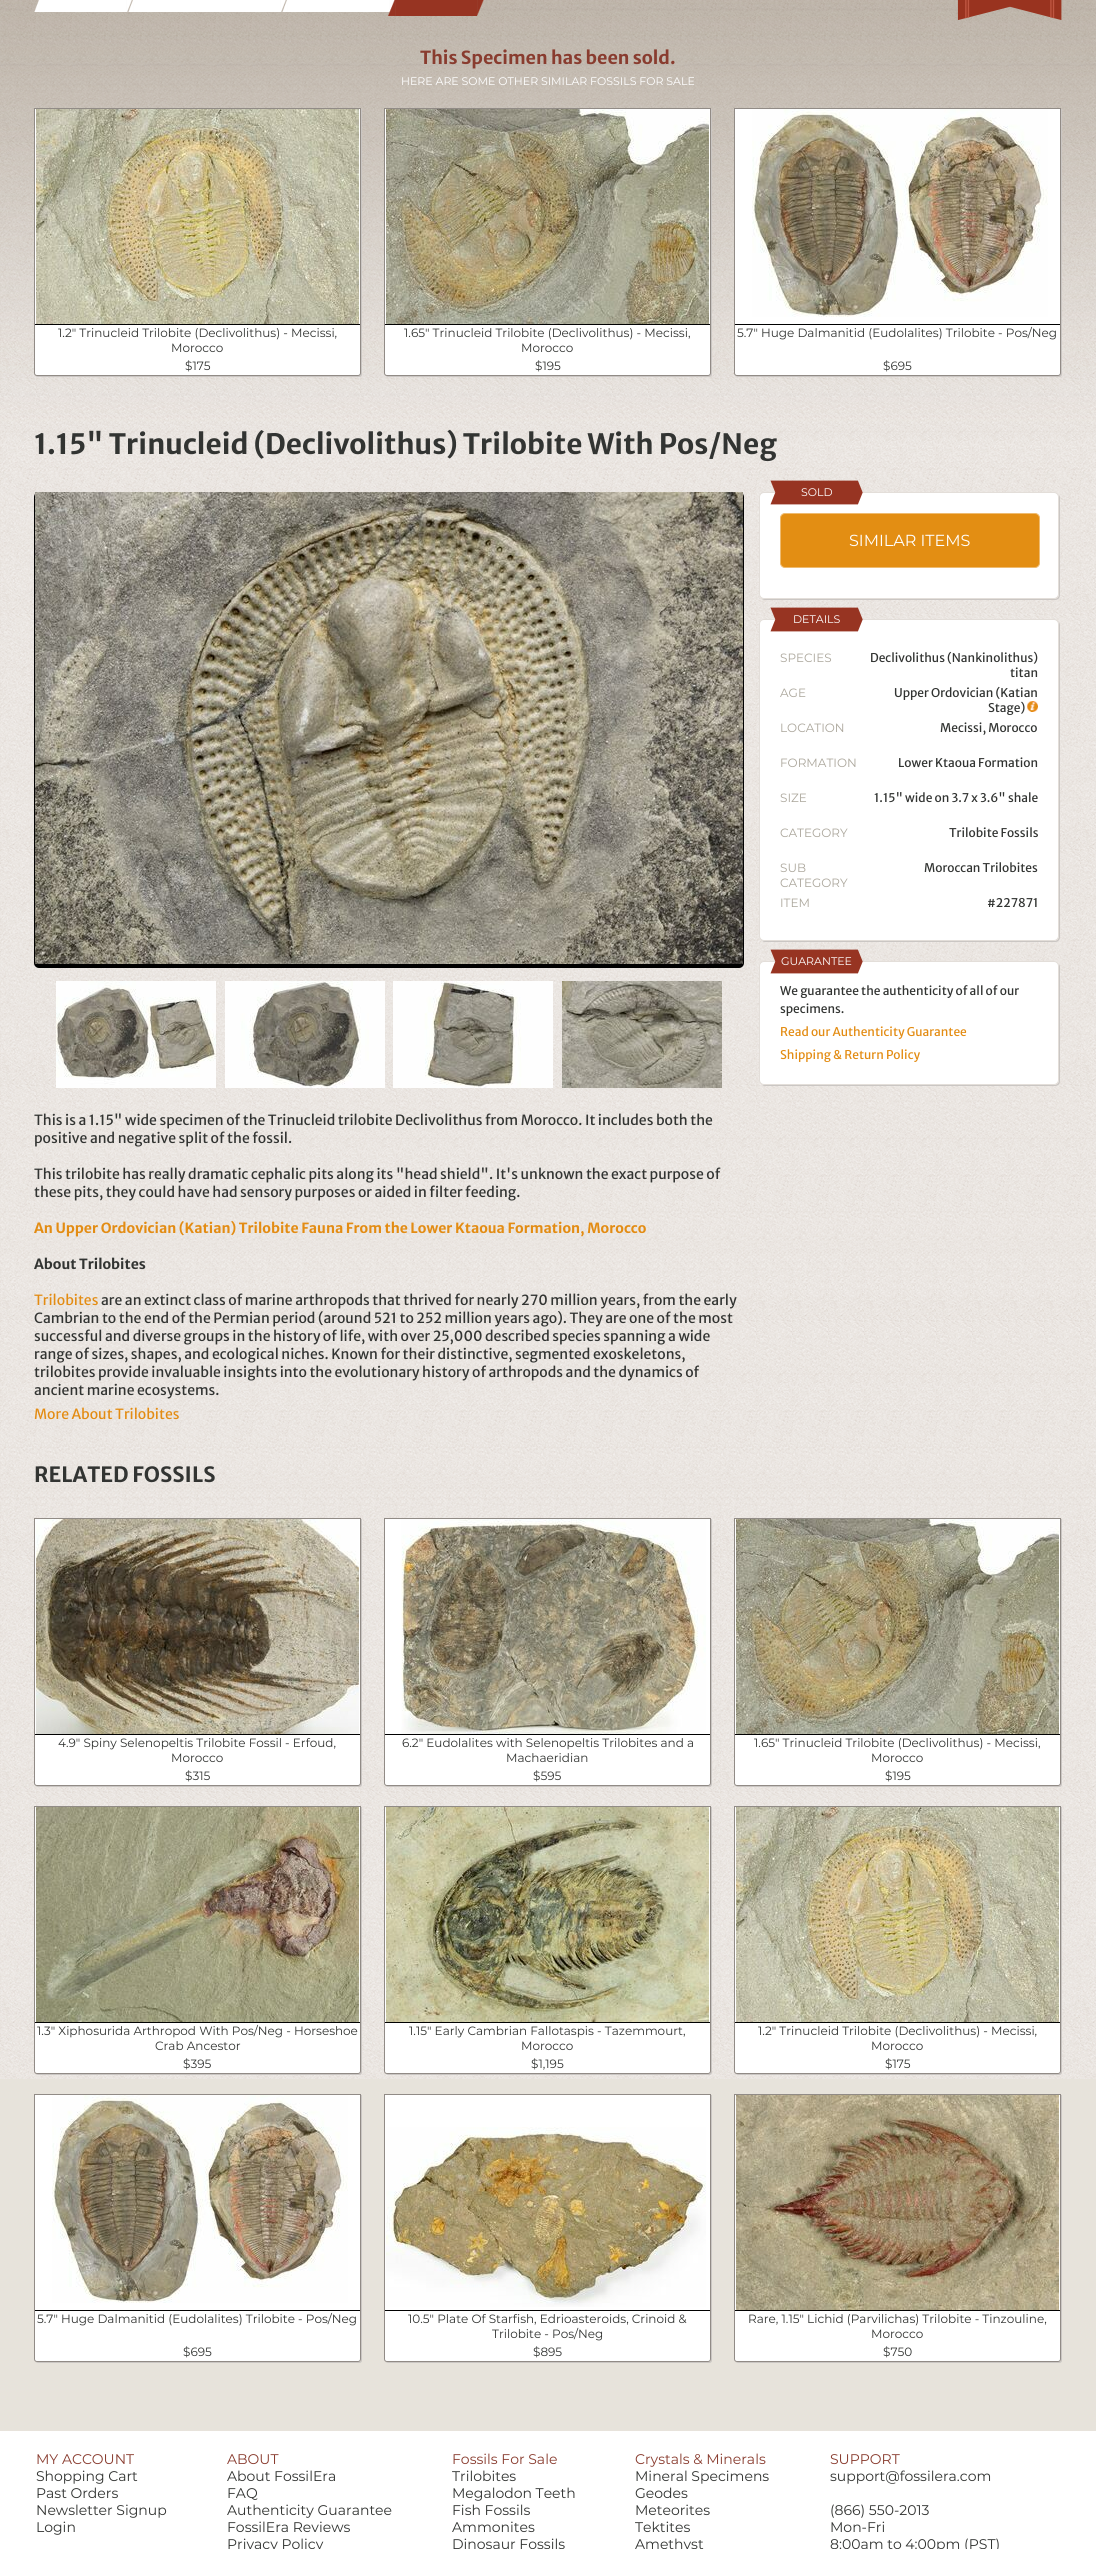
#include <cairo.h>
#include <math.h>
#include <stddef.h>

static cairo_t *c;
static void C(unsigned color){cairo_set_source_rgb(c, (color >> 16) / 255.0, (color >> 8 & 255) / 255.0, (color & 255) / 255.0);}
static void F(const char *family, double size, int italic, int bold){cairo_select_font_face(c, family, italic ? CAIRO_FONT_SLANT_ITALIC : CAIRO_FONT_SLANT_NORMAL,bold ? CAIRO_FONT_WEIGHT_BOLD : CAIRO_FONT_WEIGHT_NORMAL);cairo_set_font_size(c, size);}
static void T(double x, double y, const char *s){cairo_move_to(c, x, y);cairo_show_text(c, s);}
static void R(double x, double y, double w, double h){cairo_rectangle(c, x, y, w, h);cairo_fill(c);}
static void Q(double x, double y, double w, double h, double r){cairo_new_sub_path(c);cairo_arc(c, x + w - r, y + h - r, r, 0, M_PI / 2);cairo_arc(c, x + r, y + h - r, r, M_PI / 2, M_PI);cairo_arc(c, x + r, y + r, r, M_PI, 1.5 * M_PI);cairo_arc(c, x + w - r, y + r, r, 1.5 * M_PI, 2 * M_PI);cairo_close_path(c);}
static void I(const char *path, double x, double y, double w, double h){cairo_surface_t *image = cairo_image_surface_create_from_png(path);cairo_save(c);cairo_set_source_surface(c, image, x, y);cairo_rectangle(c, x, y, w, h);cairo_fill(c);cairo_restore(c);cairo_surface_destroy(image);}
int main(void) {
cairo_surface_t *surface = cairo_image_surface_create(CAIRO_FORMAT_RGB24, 1096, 2549);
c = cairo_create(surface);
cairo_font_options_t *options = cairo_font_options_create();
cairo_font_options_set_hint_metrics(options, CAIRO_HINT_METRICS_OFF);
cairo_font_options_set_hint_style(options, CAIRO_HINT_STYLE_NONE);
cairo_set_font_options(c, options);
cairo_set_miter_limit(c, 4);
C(0xe7e3db);
cairo_paint(c);
I("1.png",0,0,1096,2079);
I("2.png",957,0,105,20);
I("3.png",34,0,6,12);
C(0xffffff);
R(40,0,86,12);
I("4.png",126,0,6,12);
I("5.png",128,0,6,12);
R(134,0,146,12);
I("6.png",280,0,6,12);
I("7.png",282,0,6,12);
R(288,0,101,12);
I("8.png",389,0,6,12);
I("9.png",388,0,8,16);
C(0x973422);
R(396,0,81,16);
I("10.png",477,0,7,16);
F("Merriweather Sans",18,0,1);
C(0x893c2f);
T(420,64,"This Specimen has been sold.");
F("Montserrat",11,0,0);
C(0xffffff);
T(401,85,"HERE ARE SOME OTHER SIMILAR FOSSILS FOR SALE");
C(0xcac6c3);
cairo_new_path(c);
cairo_move_to(c,35,376);
cairo_curve_to(c,36,376,37,377,38,377);
cairo_line_to(c,359,377);
cairo_curve_to(c,361,377,362,376,362,374);
cairo_line_to(c,362,109);
cairo_line_to(c,361,109);
cairo_line_to(c,361,373);
cairo_curve_to(c,361,375,360,376,358,376);
cairo_line_to(c,37,376);
cairo_close_path(c);
cairo_fill(c);
C(0xffffff);
cairo_new_path(c);
cairo_move_to(c,34.5,108.5);
cairo_line_to(c,360.5,108.5);
cairo_line_to(c,360.5,373);
cairo_curve_to(c,360.5,374.5,359.5,375.5,358,375.5);
cairo_line_to(c,37,375.5);
cairo_curve_to(c,35.5,375.5,34.5,374.5,34.5,373);
cairo_close_path(c);
cairo_fill_preserve(c);
C(0x918b86);
cairo_set_line_width(c,1);
cairo_stroke(c);
I("11.png",36,109,323,215);
C(0x000000);
R(35,324,325,1);
F("Montserrat",12,0,0);
C(0x323432);
T(58,337,"1.2\" Trinucleid Trilobite (Declivolithus) - Mecissi,");
T(171,352,"Morocco");
T(185,370,"$175");
C(0xcac6c3);
cairo_new_path(c);
cairo_move_to(c,385,376);
cairo_curve_to(c,386,376,387,377,388,377);
cairo_line_to(c,709,377);
cairo_curve_to(c,711,377,712,376,712,374);
cairo_line_to(c,712,109);
cairo_line_to(c,711,109);
cairo_line_to(c,711,373);
cairo_curve_to(c,711,375,710,376,708,376);
cairo_line_to(c,387,376);
cairo_close_path(c);
cairo_fill(c);
C(0xffffff);
cairo_new_path(c);
cairo_move_to(c,384.5,108.5);
cairo_line_to(c,710.5,108.5);
cairo_line_to(c,710.5,373);
cairo_curve_to(c,710.5,374.5,709.5,375.5,708,375.5);
cairo_line_to(c,387,375.5);
cairo_curve_to(c,385.5,375.5,384.5,374.5,384.5,373);
cairo_close_path(c);
cairo_fill_preserve(c);
C(0x918b86);
cairo_stroke(c);
I("12.png",386,109,323,215);
C(0x000000);
R(385,324,325,1);
C(0x323432);
T(404,337,"1.65\" Trinucleid Trilobite (Declivolithus) - Mecissi,");
T(521,352,"Morocco");
T(535,370,"$195");
C(0xcac6c3);
cairo_new_path(c);
cairo_move_to(c,735,376);
cairo_curve_to(c,736,376,737,377,738,377);
cairo_line_to(c,1059,377);
cairo_curve_to(c,1061,377,1062,376,1062,374);
cairo_line_to(c,1062,109);
cairo_line_to(c,1061,109);
cairo_line_to(c,1061,373);
cairo_curve_to(c,1061,375,1060,376,1058,376);
cairo_line_to(c,737,376);
cairo_close_path(c);
cairo_fill(c);
C(0xffffff);
cairo_new_path(c);
cairo_move_to(c,734.5,108.5);
cairo_line_to(c,1060.5,108.5);
cairo_line_to(c,1060.5,373);
cairo_curve_to(c,1060.5,374.5,1059.5,375.5,1058,375.5);
cairo_line_to(c,737,375.5);
cairo_curve_to(c,735.5,375.5,734.5,374.5,734.5,373);
cairo_close_path(c);
cairo_fill_preserve(c);
C(0x918b86);
cairo_stroke(c);
I("13.png",752,109,296,208);
C(0x000000);
R(735,324,325,1);
C(0x323432);
T(737,337,"5.7\" Huge Dalmanitid (Eudolalites) Trilobite - Pos/Neg");
T(883,370,"$695");
F("Merriweather Sans",28,0,1);
T(34,454,"1.15\" Trinucleid (Declivolithus) Trilobite With Pos/Neg");
C(0xcac6c3);
cairo_new_path(c);
cairo_move_to(c,761,598);
cairo_curve_to(c,762,599,763,600,765,600);
cairo_line_to(c,1055,600);
cairo_curve_to(c,1058,600,1060,598,1060,595);
cairo_line_to(c,1060,498);
cairo_curve_to(c,1060,496,1059,495,1058,494);
cairo_curve_to(c,1059,495,1059,496,1059,497);
cairo_line_to(c,1059,594);
cairo_curve_to(c,1059,597,1057,599,1054,599);
cairo_line_to(c,764,599);
cairo_curve_to(c,763,599,762,599,761,598);
cairo_close_path(c);
cairo_fill(c);
C(0xffffff);
Q(759.5,492.5,299,106,4.5);
cairo_fill_preserve(c);
C(0xe3ded9);
cairo_stroke(c);
I("14.png",770,480,93,25);
F("Montserrat",11,0,0);
C(0xffffff);
T(801,496,"SOLD");
C(0xe38e13);
Q(780.5,513.5,259,54,4.5);
cairo_fill_preserve(c);
C(0xeebb71);
cairo_stroke(c);
F("Montserrat",16,0,0);
C(0xffffff);
T(849,546,"SIMILAR ITEMS");
C(0xcac6c3);
cairo_new_path(c);
cairo_move_to(c,761,940);
cairo_curve_to(c,762,941,763,942,765,942);
cairo_line_to(c,1055,942);
cairo_curve_to(c,1058,942,1060,940,1060,937);
cairo_line_to(c,1060,625);
cairo_curve_to(c,1060,623,1059,622,1058,621);
cairo_curve_to(c,1059,622,1059,623,1059,624);
cairo_line_to(c,1059,936);
cairo_curve_to(c,1059,939,1057,941,1054,941);
cairo_line_to(c,764,941);
cairo_curve_to(c,763,941,762,941,761,940);
cairo_close_path(c);
cairo_fill(c);
C(0xffffff);
Q(759.5,619.5,299,321,4.5);
cairo_fill_preserve(c);
C(0xe3ded9);
cairo_stroke(c);
I("15.png",770,607,93,25);
F("Montserrat",11,0,0);
C(0xffffff);
T(793,623,"DETAILS");
F("Montserrat",12,0,0);
C(0xaba69b);
T(780,662,"SPECIES");
F("Merriweather Sans",12,0,0);
C(0x323432);
T(870,662,"Declivolithus (Nankinolithus)");
T(1010,677,"titan");
F("Montserrat",12,0,0);
C(0xaba69b);
T(780,697,"AGE");
F("Merriweather Sans",12,0,0);
C(0x323432);
T(894,697,"Upper Ordovician (Katian");
T(988,712,"Stage)");
I("16.png",1027,701,11,11);
F("Montserrat",12,0,0);
C(0xaba69b);
T(780,732,"LOCATION");
F("Merriweather Sans",12,0,0);
C(0x323432);
T(940,732,"Mecissi, Morocco");
F("Montserrat",12,0,0);
C(0xaba69b);
T(780,767,"FORMATION");
F("Merriweather Sans",12,0,0);
C(0x323432);
T(898,767,"Lower Ktaoua Formation");
F("Montserrat",12,0,0);
C(0xaba69b);
T(780,802,"SIZE");
F("Merriweather Sans",12,0,0);
C(0x323432);
T(874,802,"1.15\" wide on 3.7 x 3.6\" shale");
F("Montserrat",12,0,0);
C(0xaba69b);
T(780,837,"CATEGORY");
F("Merriweather Sans",12,0,0);
C(0x323432);
T(949,837,"Trilobite Fossils");
F("Montserrat",12,0,0);
C(0xaba69b);
T(780,872,"SUB");
T(780,887,"CATEGORY");
F("Merriweather Sans",12,0,0);
C(0x323432);
T(924,872,"Moroccan Trilobites");
F("Montserrat",12,0,0);
C(0xaba69b);
T(780,907,"ITEM");
F("Merriweather Sans",12,0,0);
C(0x323432);
T(987,907,"#227871");
C(0xcac6c3);
cairo_new_path(c);
cairo_move_to(c,761,1084);
cairo_curve_to(c,762,1085,763,1086,765,1086);
cairo_line_to(c,1055,1086);
cairo_curve_to(c,1058,1086,1060,1084,1060,1081);
cairo_line_to(c,1060,967);
cairo_curve_to(c,1060,965,1059,964,1058,963);
cairo_curve_to(c,1059,964,1059,965,1059,966);
cairo_line_to(c,1059,1080);
cairo_curve_to(c,1059,1083,1057,1085,1054,1085);
cairo_line_to(c,764,1085);
cairo_curve_to(c,763,1085,762,1085,761,1084);
cairo_close_path(c);
cairo_fill(c);
C(0xffffff);
Q(759.5,961.5,299,123,4.5);
cairo_fill_preserve(c);
C(0xe3ded9);
cairo_stroke(c);
I("17.png",770,949,93,25);
F("Montserrat",11,0,0);
C(0xffffff);
T(781,965,"GUARANTEE");
F("Merriweather Sans",12,0,0);
C(0x323432);
T(780,995,"We guarantee the authenticity of all of our");
T(780,1013,"specimens.");
C(0xe38c13);
T(780,1036,"Read our Authenticity Guarantee");
T(780,1059,"Shipping & Return Policy");
C(0x000000);
Q(34,492,710,476,5);
cairo_fill(c);
I("18.png",35,492,708,472);
I("19.png",56,981,160,107);
I("20.png",225,981,160,107);
I("21.png",393,981,160,107);
I("22.png",562,981,160,107);
F("Merriweather Sans",14,0,0);
C(0x323432);
T(34,1125,"This is a 1.15\" wide specimen of the Trinucleid trilobite Declivolithus from Morocco. It includes both the");
T(34,1143,"positive and negative split of the fossil.");
T(34,1179,"This trilobite has really dramatic cephalic pits along its \"head shield\". It's unknown the exact purpose of");
T(34,1197,"these pits, they could have had sensory purposes or aided in filter feeding.");
F("Merriweather Sans",14,0,1);
C(0xe38c13);
T(34,1233,"An Upper Ordovician (Katian) Trilobite Fauna From the Lower Ktaoua Formation, Morocco");
C(0x323432);
T(34,1269,"About Trilobites");
F("Merriweather Sans",14,0,0);
C(0xe38c13);
T(34,1305,"Trilobites");
C(0x323432);
T(101,1305,"are an extinct class of marine arthropods that thrived for nearly 270 million years, from the early");
T(34,1323,"Cambrian to the end of the Permian period (around 521 to 252 million years ago). They are one of the most");
T(34,1341,"successful and diverse groups in the history of life, with over 25,000 described species spanning a wide");
T(34,1359,"range of sizes, shapes, and ecological niches. Known for their distinctive, segmented exoskeletons,");
T(34,1377,"trilobites provide invaluable insights into the evolutionary history of arthropods and the dynamics of");
T(34,1395,"ancient marine ecosystems.");
C(0xe38c13);
T(34,1419,"More About Trilobites");
F("Merriweather Sans",21,0,1);
C(0x323432);
T(34,1482,"RELATED FOSSILS");
C(0xcac6c3);
cairo_new_path(c);
cairo_move_to(c,35,1786);
cairo_curve_to(c,36,1786,37,1787,38,1787);
cairo_line_to(c,359,1787);
cairo_curve_to(c,361,1787,362,1786,362,1784);
cairo_line_to(c,362,1519);
cairo_line_to(c,361,1519);
cairo_line_to(c,361,1783);
cairo_curve_to(c,361,1785,360,1786,358,1786);
cairo_line_to(c,37,1786);
cairo_close_path(c);
cairo_fill(c);
C(0xffffff);
cairo_new_path(c);
cairo_move_to(c,34.5,1518.5);
cairo_line_to(c,360.5,1518.5);
cairo_line_to(c,360.5,1783);
cairo_curve_to(c,360.5,1784.5,359.5,1785.5,358,1785.5);
cairo_line_to(c,37,1785.5);
cairo_curve_to(c,35.5,1785.5,34.5,1784.5,34.5,1783);
cairo_close_path(c);
cairo_fill_preserve(c);
C(0x918b86);
cairo_stroke(c);
I("23.png",36,1519,323,215);
C(0x000000);
R(35,1734,325,1);
F("Montserrat",12,0,0);
C(0x323432);
T(58,1747,"4.9\" Spiny Selenopeltis Trilobite Fossil - Erfoud,");
T(171,1762,"Morocco");
T(185,1780,"$315");
C(0xcac6c3);
cairo_new_path(c);
cairo_move_to(c,385,1786);
cairo_curve_to(c,386,1786,387,1787,388,1787);
cairo_line_to(c,709,1787);
cairo_curve_to(c,711,1787,712,1786,712,1784);
cairo_line_to(c,712,1519);
cairo_line_to(c,711,1519);
cairo_line_to(c,711,1783);
cairo_curve_to(c,711,1785,710,1786,708,1786);
cairo_line_to(c,387,1786);
cairo_close_path(c);
cairo_fill(c);
C(0xffffff);
cairo_new_path(c);
cairo_move_to(c,384.5,1518.5);
cairo_line_to(c,710.5,1518.5);
cairo_line_to(c,710.5,1783);
cairo_curve_to(c,710.5,1784.5,709.5,1785.5,708,1785.5);
cairo_line_to(c,387,1785.5);
cairo_curve_to(c,385.5,1785.5,384.5,1784.5,384.5,1783);
cairo_close_path(c);
cairo_fill_preserve(c);
C(0x918b86);
cairo_stroke(c);
I("24.png",401,1519,305,215);
C(0x000000);
R(385,1734,325,1);
C(0x323432);
T(402,1747,"6.2\" Eudolalites with Selenopeltis Trilobites and a");
T(506,1762,"Machaeridian");
T(533,1780,"$595");
C(0xcac6c3);
cairo_new_path(c);
cairo_move_to(c,735,1786);
cairo_curve_to(c,736,1786,737,1787,738,1787);
cairo_line_to(c,1059,1787);
cairo_curve_to(c,1061,1787,1062,1786,1062,1784);
cairo_line_to(c,1062,1519);
cairo_line_to(c,1061,1519);
cairo_line_to(c,1061,1783);
cairo_curve_to(c,1061,1785,1060,1786,1058,1786);
cairo_line_to(c,737,1786);
cairo_close_path(c);
cairo_fill(c);
C(0xffffff);
cairo_new_path(c);
cairo_move_to(c,734.5,1518.5);
cairo_line_to(c,1060.5,1518.5);
cairo_line_to(c,1060.5,1783);
cairo_curve_to(c,1060.5,1784.5,1059.5,1785.5,1058,1785.5);
cairo_line_to(c,737,1785.5);
cairo_curve_to(c,735.5,1785.5,734.5,1784.5,734.5,1783);
cairo_close_path(c);
cairo_fill_preserve(c);
C(0x918b86);
cairo_stroke(c);
I("12.png",736,1519,323,215);
C(0x000000);
R(735,1734,325,1);
C(0x323432);
T(754,1747,"1.65\" Trinucleid Trilobite (Declivolithus) - Mecissi,");
T(871,1762,"Morocco");
T(885,1780,"$195");
C(0xcac6c3);
cairo_new_path(c);
cairo_move_to(c,35,2074);
cairo_curve_to(c,36,2074,37,2075,38,2075);
cairo_line_to(c,359,2075);
cairo_curve_to(c,361,2075,362,2074,362,2072);
cairo_line_to(c,362,1807);
cairo_line_to(c,361,1807);
cairo_line_to(c,361,2071);
cairo_curve_to(c,361,2073,360,2074,358,2074);
cairo_line_to(c,37,2074);
cairo_close_path(c);
cairo_fill(c);
C(0xffffff);
cairo_new_path(c);
cairo_move_to(c,34.5,1806.5);
cairo_line_to(c,360.5,1806.5);
cairo_line_to(c,360.5,2071);
cairo_curve_to(c,360.5,2072.5,359.5,2073.5,358,2073.5);
cairo_line_to(c,37,2073.5);
cairo_curve_to(c,35.5,2073.5,34.5,2072.5,34.5,2071);
cairo_close_path(c);
cairo_fill_preserve(c);
C(0x918b86);
cairo_stroke(c);
I("25.png",36,1807,323,215);
C(0x000000);
R(35,2022,325,1);
C(0x323432);
T(37,2035,"1.3\" Xiphosurida Arthropod With Pos/Neg - Horseshoe");
T(155,2050,"Crab Ancestor");
T(183,2068,"$395");
C(0xcac6c3);
cairo_new_path(c);
cairo_move_to(c,385,2074);
cairo_curve_to(c,386,2074,387,2075,388,2075);
cairo_line_to(c,709,2075);
cairo_curve_to(c,711,2075,712,2074,712,2072);
cairo_line_to(c,712,1807);
cairo_line_to(c,711,1807);
cairo_line_to(c,711,2071);
cairo_curve_to(c,711,2073,710,2074,708,2074);
cairo_line_to(c,387,2074);
cairo_close_path(c);
cairo_fill(c);
C(0xffffff);
cairo_new_path(c);
cairo_move_to(c,384.5,1806.5);
cairo_line_to(c,710.5,1806.5);
cairo_line_to(c,710.5,2071);
cairo_curve_to(c,710.5,2072.5,709.5,2073.5,708,2073.5);
cairo_line_to(c,387,2073.5);
cairo_curve_to(c,385.5,2073.5,384.5,2072.5,384.5,2071);
cairo_close_path(c);
cairo_fill_preserve(c);
C(0x918b86);
cairo_stroke(c);
I("26.png",386,1807,323,215);
C(0x000000);
R(385,2022,325,1);
C(0x323432);
T(409,2035,"1.15\" Early Cambrian Fallotaspis - Tazemmourt,");
T(521,2050,"Morocco");
T(531,2068,"$1,195");
C(0xcac6c3);
cairo_new_path(c);
cairo_move_to(c,735,2074);
cairo_curve_to(c,736,2074,737,2075,738,2075);
cairo_line_to(c,1059,2075);
cairo_curve_to(c,1061,2075,1062,2074,1062,2072);
cairo_line_to(c,1062,1807);
cairo_line_to(c,1061,1807);
cairo_line_to(c,1061,2071);
cairo_curve_to(c,1061,2073,1060,2074,1058,2074);
cairo_line_to(c,737,2074);
cairo_close_path(c);
cairo_fill(c);
C(0xffffff);
cairo_new_path(c);
cairo_move_to(c,734.5,1806.5);
cairo_line_to(c,1060.5,1806.5);
cairo_line_to(c,1060.5,2071);
cairo_curve_to(c,1060.5,2072.5,1059.5,2073.5,1058,2073.5);
cairo_line_to(c,737,2073.5);
cairo_curve_to(c,735.5,2073.5,734.5,2072.5,734.5,2071);
cairo_close_path(c);
cairo_fill_preserve(c);
C(0x918b86);
cairo_stroke(c);
I("11.png",736,1807,323,215);
C(0x000000);
R(735,2022,325,1);
C(0x323432);
T(758,2035,"1.2\" Trinucleid Trilobite (Declivolithus) - Mecissi,");
T(871,2050,"Morocco");
T(885,2068,"$175");
C(0xcac6c3);
cairo_new_path(c);
cairo_move_to(c,35,2362);
cairo_curve_to(c,36,2362,37,2363,38,2363);
cairo_line_to(c,359,2363);
cairo_curve_to(c,361,2363,362,2362,362,2360);
cairo_line_to(c,362,2095);
cairo_line_to(c,361,2095);
cairo_line_to(c,361,2359);
cairo_curve_to(c,361,2361,360,2362,358,2362);
cairo_line_to(c,37,2362);
cairo_close_path(c);
cairo_fill(c);
C(0xffffff);
cairo_new_path(c);
cairo_move_to(c,34.5,2094.5);
cairo_line_to(c,360.5,2094.5);
cairo_line_to(c,360.5,2359);
cairo_curve_to(c,360.5,2360.5,359.5,2361.5,358,2361.5);
cairo_line_to(c,37,2361.5);
cairo_curve_to(c,35.5,2361.5,34.5,2360.5,34.5,2359);
cairo_close_path(c);
cairo_fill_preserve(c);
C(0x918b86);
cairo_stroke(c);
I("13.png",52,2095,296,208);
C(0x000000);
R(35,2310,325,1);
C(0x323432);
T(37,2323,"5.7\" Huge Dalmanitid (Eudolalites) Trilobite - Pos/Neg");
T(183,2356,"$695");
C(0xcac6c3);
cairo_new_path(c);
cairo_move_to(c,385,2362);
cairo_curve_to(c,386,2362,387,2363,388,2363);
cairo_line_to(c,709,2363);
cairo_curve_to(c,711,2363,712,2362,712,2360);
cairo_line_to(c,712,2095);
cairo_line_to(c,711,2095);
cairo_line_to(c,711,2359);
cairo_curve_to(c,711,2361,710,2362,708,2362);
cairo_line_to(c,387,2362);
cairo_close_path(c);
cairo_fill(c);
C(0xffffff);
cairo_new_path(c);
cairo_move_to(c,384.5,2094.5);
cairo_line_to(c,710.5,2094.5);
cairo_line_to(c,710.5,2359);
cairo_curve_to(c,710.5,2360.5,709.5,2361.5,708,2361.5);
cairo_line_to(c,387,2361.5);
cairo_curve_to(c,385.5,2361.5,384.5,2360.5,384.5,2359);
cairo_close_path(c);
cairo_fill_preserve(c);
C(0x918b86);
cairo_stroke(c);
I("27.png",386,2127,320,180);
C(0x000000);
R(385,2310,325,1);
C(0x323432);
T(408,2323,"10.5\" Plate Of Starfish, Edrioasteroids, Crinoid &");
T(492,2338,"Trilobite - Pos/Neg");
T(533,2356,"$895");
C(0xcac6c3);
cairo_new_path(c);
cairo_move_to(c,735,2362);
cairo_curve_to(c,736,2362,737,2363,738,2363);
cairo_line_to(c,1059,2363);
cairo_curve_to(c,1061,2363,1062,2362,1062,2360);
cairo_line_to(c,1062,2095);
cairo_line_to(c,1061,2095);
cairo_line_to(c,1061,2359);
cairo_curve_to(c,1061,2361,1060,2362,1058,2362);
cairo_line_to(c,737,2362);
cairo_close_path(c);
cairo_fill(c);
C(0xffffff);
cairo_new_path(c);
cairo_move_to(c,734.5,2094.5);
cairo_line_to(c,1060.5,2094.5);
cairo_line_to(c,1060.5,2359);
cairo_curve_to(c,1060.5,2360.5,1059.5,2361.5,1058,2361.5);
cairo_line_to(c,737,2361.5);
cairo_curve_to(c,735.5,2361.5,734.5,2360.5,734.5,2359);
cairo_close_path(c);
cairo_fill_preserve(c);
C(0x918b86);
cairo_stroke(c);
I("28.png",736,2095,323,215);
C(0x000000);
R(735,2310,325,1);
C(0x323432);
T(748,2323,"Rare, 1.15\" Lichid (Parvilichas) Trilobite - Tinzouline,");
T(871,2338,"Morocco");
T(883,2356,"$750");
C(0xffffff);
R(0,2431,1096,118);
F("Montserrat",14,0,0);
C(0x893c2f);
T(36,2464,"MY ACCOUNT");
C(0x323432);
T(36,2481,"Shopping Cart");
T(36,2498,"Past Orders");
T(36,2515,"Newsletter Signup");
T(36,2532,"Login");
C(0x893c2f);
T(227,2464,"ABOUT");
C(0x323432);
T(227,2481,"About FossilEra");
T(227,2498,"FAQ");
T(227,2515,"Authenticity Guarantee");
T(227,2532,"FossilEra Reviews");
T(227,2549,"Privacy Policy");
C(0x893c2f);
T(452,2464,"Fossils For Sale");
C(0x323432);
T(452,2481,"Trilobites");
T(452,2498,"Megalodon Teeth");
T(452,2515,"Fish Fossils");
T(452,2532,"Ammonites");
T(452,2549,"Dinosaur Fossils");
C(0x893c2f);
T(635,2464,"Crystals & Minerals");
C(0x323432);
T(635,2481,"Mineral Specimens");
T(635,2498,"Geodes");
T(635,2515,"Meteorites");
T(635,2532,"Tektites");
T(635,2549,"Amethyst");
C(0x893c2f);
T(830,2464,"SUPPORT");
C(0x323432);
T(830,2481,"support@fossilera.com");
T(830,2515,"(866) 550-2013");
T(830,2532,"Mon-Fri");
T(830,2549,"8:00am to 4:00pm (PST)");
cairo_surface_write_to_png(surface, "o.png");
cairo_font_options_destroy(options);
cairo_destroy(c);
cairo_surface_destroy(surface);
return 0;
}
